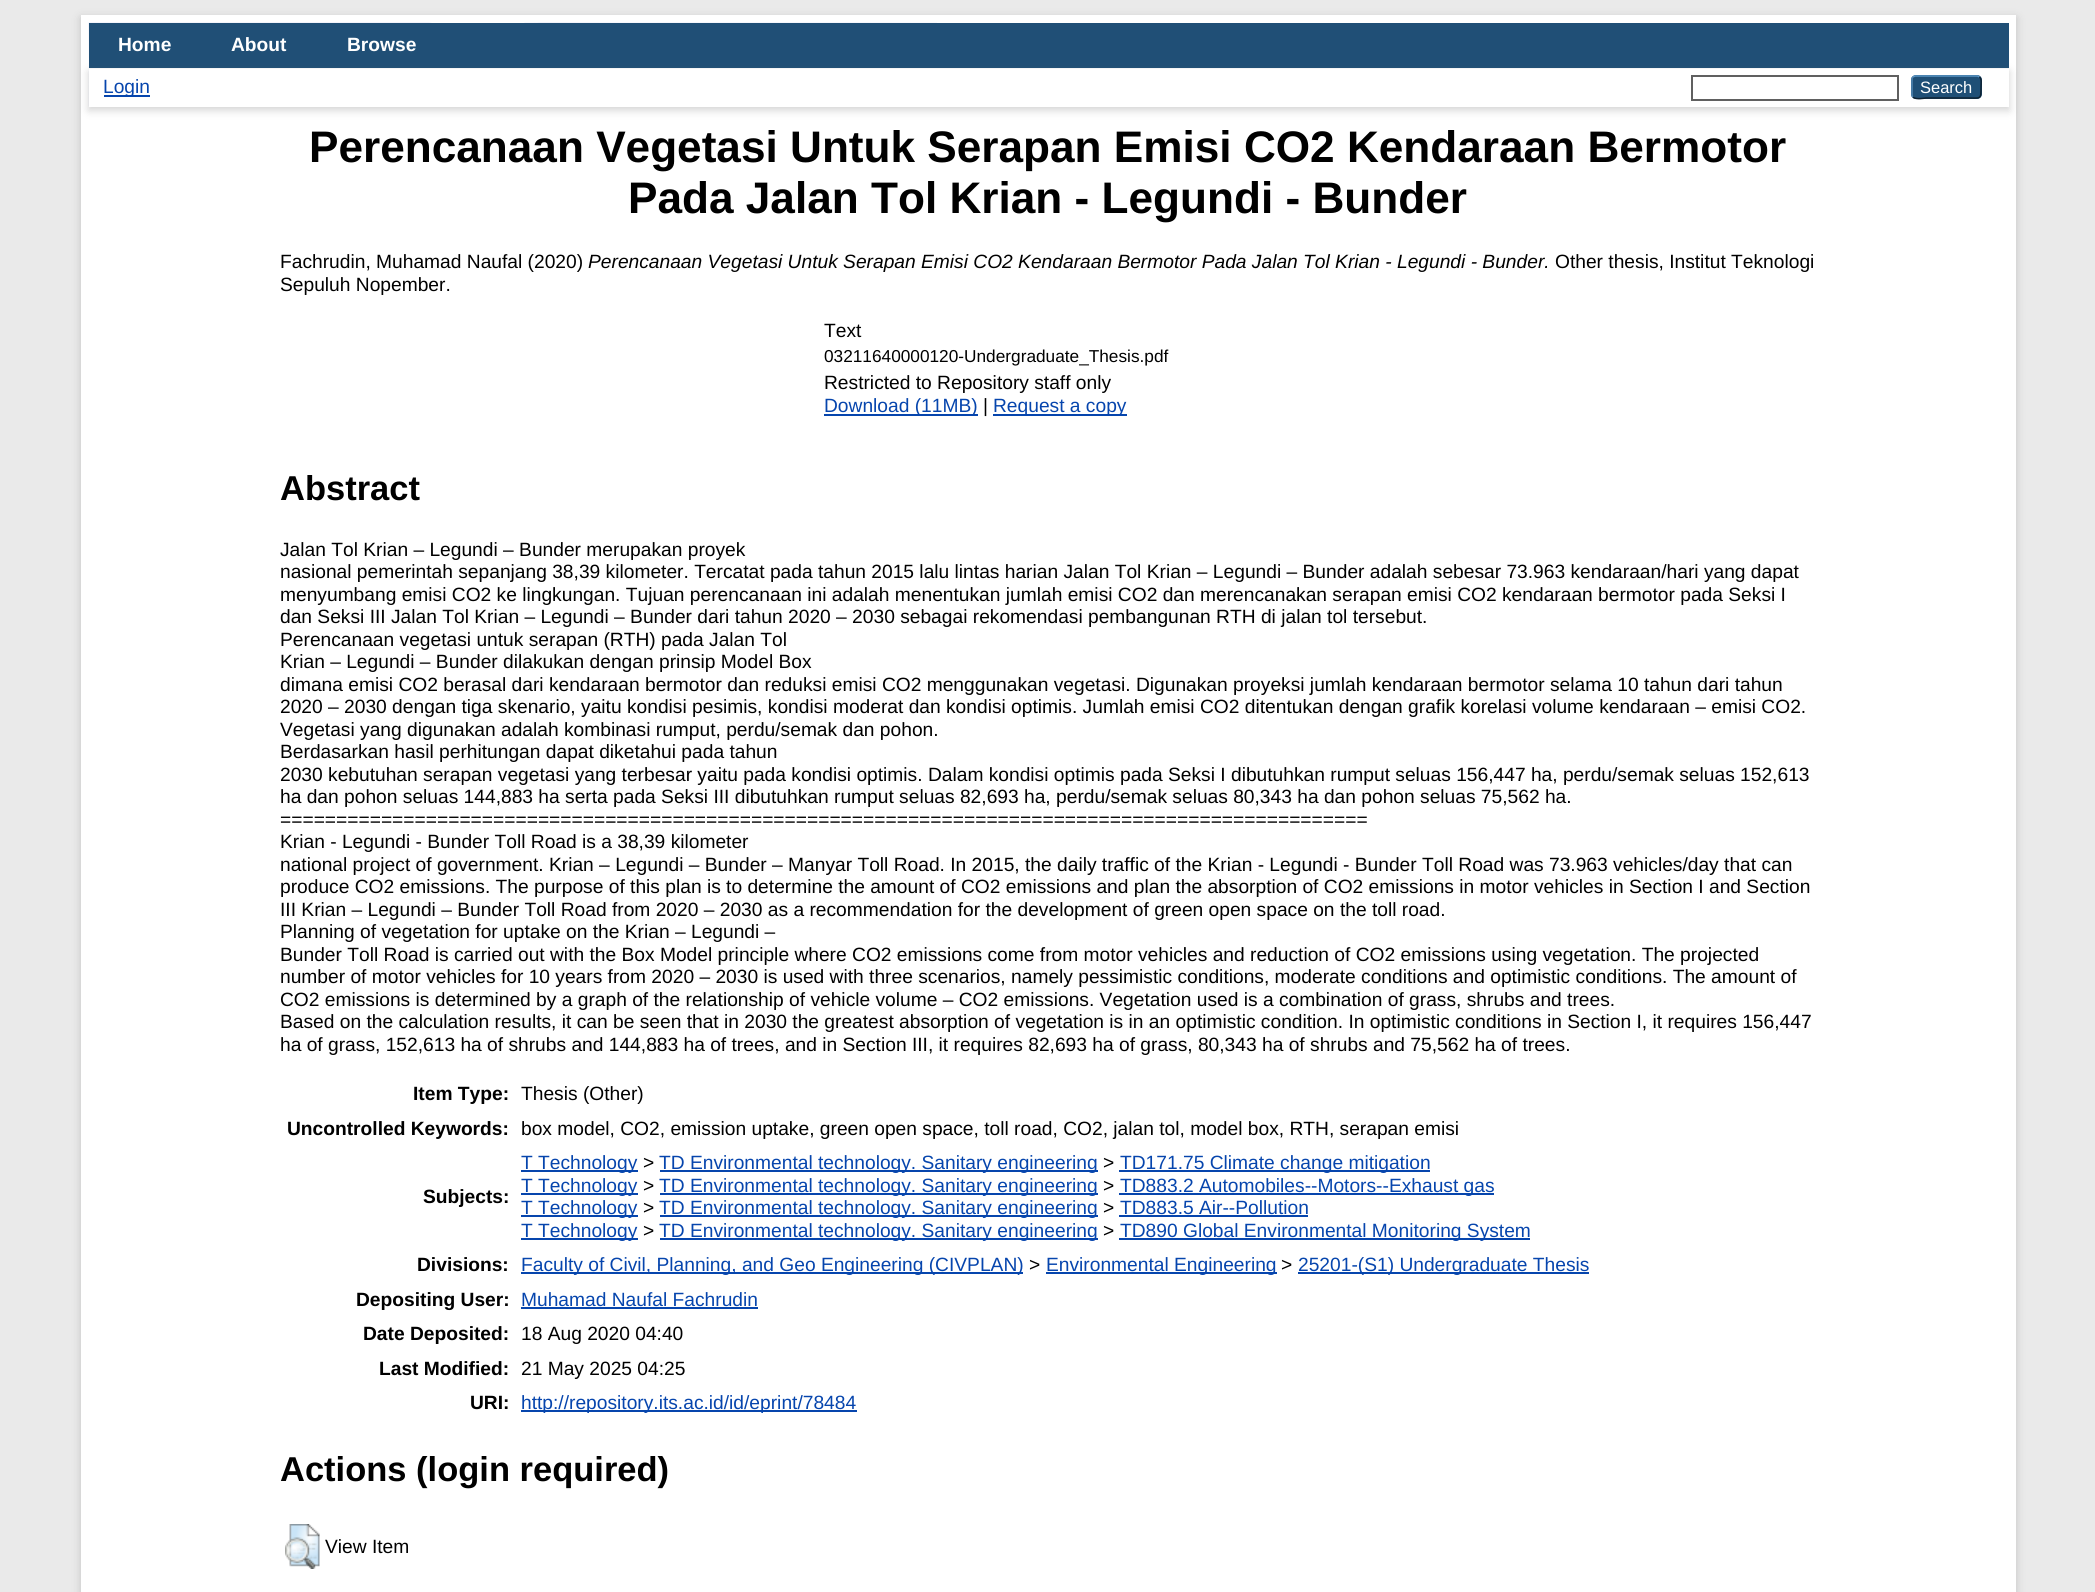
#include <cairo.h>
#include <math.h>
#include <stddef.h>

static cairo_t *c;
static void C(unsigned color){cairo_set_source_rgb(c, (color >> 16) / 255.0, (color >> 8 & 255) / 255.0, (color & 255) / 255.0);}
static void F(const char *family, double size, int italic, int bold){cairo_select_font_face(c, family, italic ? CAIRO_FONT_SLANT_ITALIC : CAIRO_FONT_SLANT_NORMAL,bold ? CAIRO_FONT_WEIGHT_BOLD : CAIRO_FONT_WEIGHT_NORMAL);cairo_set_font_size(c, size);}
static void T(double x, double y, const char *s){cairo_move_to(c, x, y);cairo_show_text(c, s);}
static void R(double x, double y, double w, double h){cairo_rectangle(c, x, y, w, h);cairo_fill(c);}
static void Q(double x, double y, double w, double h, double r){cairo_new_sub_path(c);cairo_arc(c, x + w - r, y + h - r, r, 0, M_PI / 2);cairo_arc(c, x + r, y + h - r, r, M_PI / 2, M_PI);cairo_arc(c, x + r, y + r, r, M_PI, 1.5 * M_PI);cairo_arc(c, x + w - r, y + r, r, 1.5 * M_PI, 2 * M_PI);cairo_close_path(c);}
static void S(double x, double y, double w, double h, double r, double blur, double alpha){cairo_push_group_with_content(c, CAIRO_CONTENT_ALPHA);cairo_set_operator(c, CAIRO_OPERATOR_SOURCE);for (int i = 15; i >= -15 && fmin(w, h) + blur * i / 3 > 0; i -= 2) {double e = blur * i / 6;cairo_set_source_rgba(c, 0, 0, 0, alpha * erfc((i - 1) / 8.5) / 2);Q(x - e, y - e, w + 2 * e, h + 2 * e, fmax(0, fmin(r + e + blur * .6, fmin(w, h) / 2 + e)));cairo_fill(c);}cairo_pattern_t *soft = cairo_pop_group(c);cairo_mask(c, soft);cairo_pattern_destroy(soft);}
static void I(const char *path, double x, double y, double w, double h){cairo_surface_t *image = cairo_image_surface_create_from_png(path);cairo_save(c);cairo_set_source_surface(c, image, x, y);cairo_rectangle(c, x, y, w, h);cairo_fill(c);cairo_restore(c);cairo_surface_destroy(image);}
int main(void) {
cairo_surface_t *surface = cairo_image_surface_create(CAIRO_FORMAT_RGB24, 2095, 1592);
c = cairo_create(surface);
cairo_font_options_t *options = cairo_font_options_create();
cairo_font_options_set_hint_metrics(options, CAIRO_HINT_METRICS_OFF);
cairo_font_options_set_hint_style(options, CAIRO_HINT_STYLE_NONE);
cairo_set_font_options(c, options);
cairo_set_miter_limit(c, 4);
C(0xeaeaea);
cairo_paint(c);
C(0x646464);
S(81,18,1935,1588,0,4.5,.3);
C(0xffffff);
R(81,15,1935,1577);
I("1.png",88,22,849,84);
C(0x204f76);
R(89,23,1920,45);
C(0xffffff);
R(89,68,848,1);
F("Liberation Sans",19.2,0,1);
T(118,51,"Home");
T(231,51,"About");
T(347,51,"Browse");
C(0x646464);
S(89,72,1920,38,0,4.5,.3);
C(0xffffff);
R(89,69,1920,38);
C(0x0645ad);
R(104,95,46,2);
F("Liberation Sans",19.2,0,0);
T(103,93,"Login");
cairo_rectangle(c,1692,76,206,24);
C(0x606060);
cairo_stroke(c);
C(0x1f4f76);
Q(1911,75,71,24,5);
cairo_fill(c);
cairo_new_path(c);
cairo_move_to(c,1913,77);
cairo_line_to(c,1915,76);
cairo_line_to(c,1977.5,76);
cairo_line_to(c,1979.5,77);
C(0x5b97c7);
cairo_set_line_width(c,1.5);
cairo_stroke(c);
cairo_new_path(c);
cairo_move_to(c,1979.5,77);
cairo_curve_to(c,1982,79,1981,84,1981,87);
cairo_curve_to(c,1981,100,1981,98,1967,98);
cairo_line_to(c,1926,98);
cairo_curve_to(c,1925.5,98,1915.5,100,1913,97);
C(0x0d2131);
cairo_stroke(c);
cairo_new_path(c);
cairo_move_to(c,1913,97);
cairo_curve_to(c,1912,96.5,1912,95.5,1912,94.5);
cairo_line_to(c,1912,79.5);
cairo_curve_to(c,1912,78.5,1912,77.5,1913,77);
C(0x5287b3);
cairo_stroke(c);
F("Liberation Sans",16.5,0,0);
C(0xffffff);
T(1920,93,"Search");
F("Liberation Sans",44.15,0,1);
C(0x000000);
T(309,162,"Perencanaan Vegetasi Untuk Serapan Emisi CO2 Kendaraan Bermotor");
T(628,213,"Pada Jalan Tol Krian - Legundi - Bunder");
F("Liberation Sans",19.2,0,0);
T(280,268,"Fachrudin, Muhamad Naufal (2020)");
F("Liberation Sans",19.2,1,0);
T(588,268,"Perencanaan Vegetasi Untuk Serapan Emisi CO2 Kendaraan Bermotor Pada Jalan Tol Krian - Legundi - Bunder.");
F("Liberation Sans",19.2,0,0);
T(1555,268,"Other thesis, Institut Teknologi");
T(280,291,"Sepuluh Nopember.");
T(824,337,"Text");
F("Liberation Sans",17.25,0,0);
T(824,362,"03211640000120-Undergraduate_Thesis.pdf");
F("Liberation Sans",19.2,0,0);
T(824,389,"Restricted to Repository staff only");
C(0x0645ad);
R(824,414,154,2);
T(824,412,"Download (11MB)");
C(0x000000);
T(983,412,"|");
C(0x0645ad);
R(993,414,134,2);
T(993,412,"Request a copy");
F("Liberation Sans",34.5,0,1);
C(0x000000);
T(280,500,"Abstract");
F("Liberation Sans",19.2,0,0);
T(280,556,"Jalan Tol Krian – Legundi – Bunder merupakan proyek");
T(280,578,"nasional pemerintah sepanjang 38,39 kilometer. Tercatat pada tahun 2015 lalu lintas harian Jalan Tol Krian – Legundi – Bunder adalah sebesar 73.963 kendaraan/hari yang dapat");
T(280,601,"menyumbang emisi CO2 ke lingkungan. Tujuan perencanaan ini adalah menentukan jumlah emisi CO2 dan merencanakan serapan emisi CO2 kendaraan bermotor pada Seksi I");
T(280,623,"dan Seksi III Jalan Tol Krian – Legundi – Bunder dari tahun 2020 – 2030 sebagai rekomendasi pembangunan RTH di jalan tol tersebut.");
T(280,646,"Perencanaan vegetasi untuk serapan (RTH) pada Jalan Tol");
T(280,668,"Krian – Legundi – Bunder dilakukan dengan prinsip Model Box");
T(280,691,"dimana emisi CO2 berasal dari kendaraan bermotor dan reduksi emisi CO2 menggunakan vegetasi. Digunakan proyeksi jumlah kendaraan bermotor selama 10 tahun dari tahun");
T(280,713,"2020 – 2030 dengan tiga skenario, yaitu kondisi pesimis, kondisi moderat dan kondisi optimis. Jumlah emisi CO2 ditentukan dengan grafik korelasi volume kendaraan – emisi CO2.");
T(280,736,"Vegetasi yang digunakan adalah kombinasi rumput, perdu/semak dan pohon.");
T(280,758,"Berdasarkan hasil perhitungan dapat diketahui pada tahun");
T(280,781,"2030 kebutuhan serapan vegetasi yang terbesar yaitu pada kondisi optimis. Dalam kondisi optimis pada Seksi I dibutuhkan rumput seluas 156,447 ha, perdu/semak seluas 152,613");
T(280,803,"ha dan pohon seluas 144,883 ha serta pada Seksi III dibutuhkan rumput seluas 82,693 ha, perdu/semak seluas 80,343 ha dan pohon seluas 75,562 ha.");
T(280,826,"=================================================================================================");
T(280,848,"Krian - Legundi - Bunder Toll Road is a 38,39 kilometer");
T(280,871,"national project of government. Krian – Legundi – Bunder – Manyar Toll Road. In 2015, the daily traffic of the Krian - Legundi - Bunder Toll Road was 73.963 vehicles/day that can");
T(280,893,"produce CO2 emissions. The purpose of this plan is to determine the amount of CO2 emissions and plan the absorption of CO2 emissions in motor vehicles in Section I and Section");
T(280,916,"III Krian – Legundi – Bunder Toll Road from 2020 – 2030 as a recommendation for the development of green open space on the toll road.");
T(280,938,"Planning of vegetation for uptake on the Krian – Legundi –");
T(280,961,"Bunder Toll Road is carried out with the Box Model principle where CO2 emissions come from motor vehicles and reduction of CO2 emissions using vegetation. The projected");
T(280,983,"number of motor vehicles for 10 years from 2020 – 2030 is used with three scenarios, namely pessimistic conditions, moderate conditions and optimistic conditions. The amount of");
T(280,1006,"CO2 emissions is determined by a graph of the relationship of vehicle volume – CO2 emissions. Vegetation used is a combination of grass, shrubs and trees.");
T(280,1028,"Based on the calculation results, it can be seen that in 2030 the greatest absorption of vegetation is in an optimistic condition. In optimistic conditions in Section I, it requires 156,447");
T(280,1051,"ha of grass, 152,613 ha of shrubs and 144,883 ha of trees, and in Section III, it requires 82,693 ha of grass, 80,343 ha of shrubs and 75,562 ha of trees.");
F("Liberation Sans",19.2,0,1);
T(413,1100,"Item Type:");
F("Liberation Sans",19.2,0,0);
T(521,1100,"Thesis (Other)");
F("Liberation Sans",19.2,0,1);
T(287,1135,"Uncontrolled Keywords:");
F("Liberation Sans",19.2,0,0);
T(521,1135,"box model, CO2, emission uptake, green open space, toll road, CO2, jalan tol, model box, RTH, serapan emisi");
F("Liberation Sans",19.2,0,1);
T(423,1203,"Subjects:");
C(0x0645ad);
R(521,1170,117,2);
F("Liberation Sans",19.2,0,0);
T(521,1169,"T Technology");
C(0x000000);
T(643,1169,">");
C(0x0645ad);
R(660,1170,438,2);
T(659,1169,"TD Environmental technology. Sanitary engineering");
C(0x000000);
T(1103,1169,">");
C(0x0645ad);
R(1119,1170,311,2);
T(1120,1169,"TD171.75 Climate change mitigation");
R(521,1193,117,2);
T(521,1192,"T Technology");
C(0x000000);
T(643,1192,">");
C(0x0645ad);
R(660,1193,438,2);
T(659,1192,"TD Environmental technology. Sanitary engineering");
C(0x000000);
T(1103,1192,">");
C(0x0645ad);
R(1119,1193,375,2);
T(1120,1192,"TD883.2 Automobiles--Motors--Exhaust gas");
R(521,1215,117,2);
T(521,1214,"T Technology");
C(0x000000);
T(643,1214,">");
C(0x0645ad);
R(660,1215,438,2);
T(659,1214,"TD Environmental technology. Sanitary engineering");
C(0x000000);
T(1103,1214,">");
C(0x0645ad);
T(1120,1214,"TD883.5 Air--Pollution");
R(1119,1215,189,2);
R(521,1238,117,2);
T(521,1237,"T Technology");
C(0x000000);
T(643,1237,">");
C(0x0645ad);
R(660,1238,438,2);
T(659,1237,"TD Environmental technology. Sanitary engineering");
C(0x000000);
T(1103,1237,">");
C(0x0645ad);
R(1119,1238,411,2);
T(1120,1237,"TD890 Global Environmental Monitoring System");
F("Liberation Sans",19.2,0,1);
C(0x000000);
T(417,1271,"Divisions:");
C(0x0645ad);
R(521,1272,502,2);
F("Liberation Sans",19.2,0,0);
T(521,1271,"Faculty of Civil, Planning, and Geo Engineering (CIVPLAN)");
C(0x000000);
T(1029,1271,">");
C(0x0645ad);
R(1046,1272,231,2);
T(1046,1271,"Environmental Engineering");
C(0x000000);
T(1281,1271,">");
C(0x0645ad);
R(1298,1272,291,2);
T(1298,1271,"25201-(S1) Undergraduate Thesis");
F("Liberation Sans",19.2,0,1);
C(0x000000);
T(356,1306,"Depositing User:");
F("Liberation Sans",19.2,0,0);
C(0x0645ad);
T(521,1306,"Muhamad Naufal Fachrudin");
R(521,1307,237,2);
F("Liberation Sans",19.2,0,1);
C(0x000000);
T(363,1340,"Date Deposited:");
F("Liberation Sans",19.2,0,0);
T(521,1340,"18 Aug 2020 04:40");
F("Liberation Sans",19.2,0,1);
T(379,1375,"Last Modified:");
F("Liberation Sans",19.2,0,0);
T(521,1375,"21 May 2025 04:25");
F("Liberation Sans",19.2,0,1);
T(470,1409,"URI:");
C(0x0645ad);
R(521,1410,336,2);
F("Liberation Sans",19.2,0,0);
T(521,1409,"http://repository.its.ac.id/id/eprint/78484");
F("Liberation Sans",34.5,0,1);
C(0x000000);
T(280,1481,"Actions (login required)");
I("2.png",285,1524,35,45);
F("Liberation Sans",19.2,0,0);
T(325,1553,"View Item");
cairo_surface_write_to_png(surface, "o.png");
cairo_font_options_destroy(options);
cairo_destroy(c);
cairo_surface_destroy(surface);
return 0;
}
